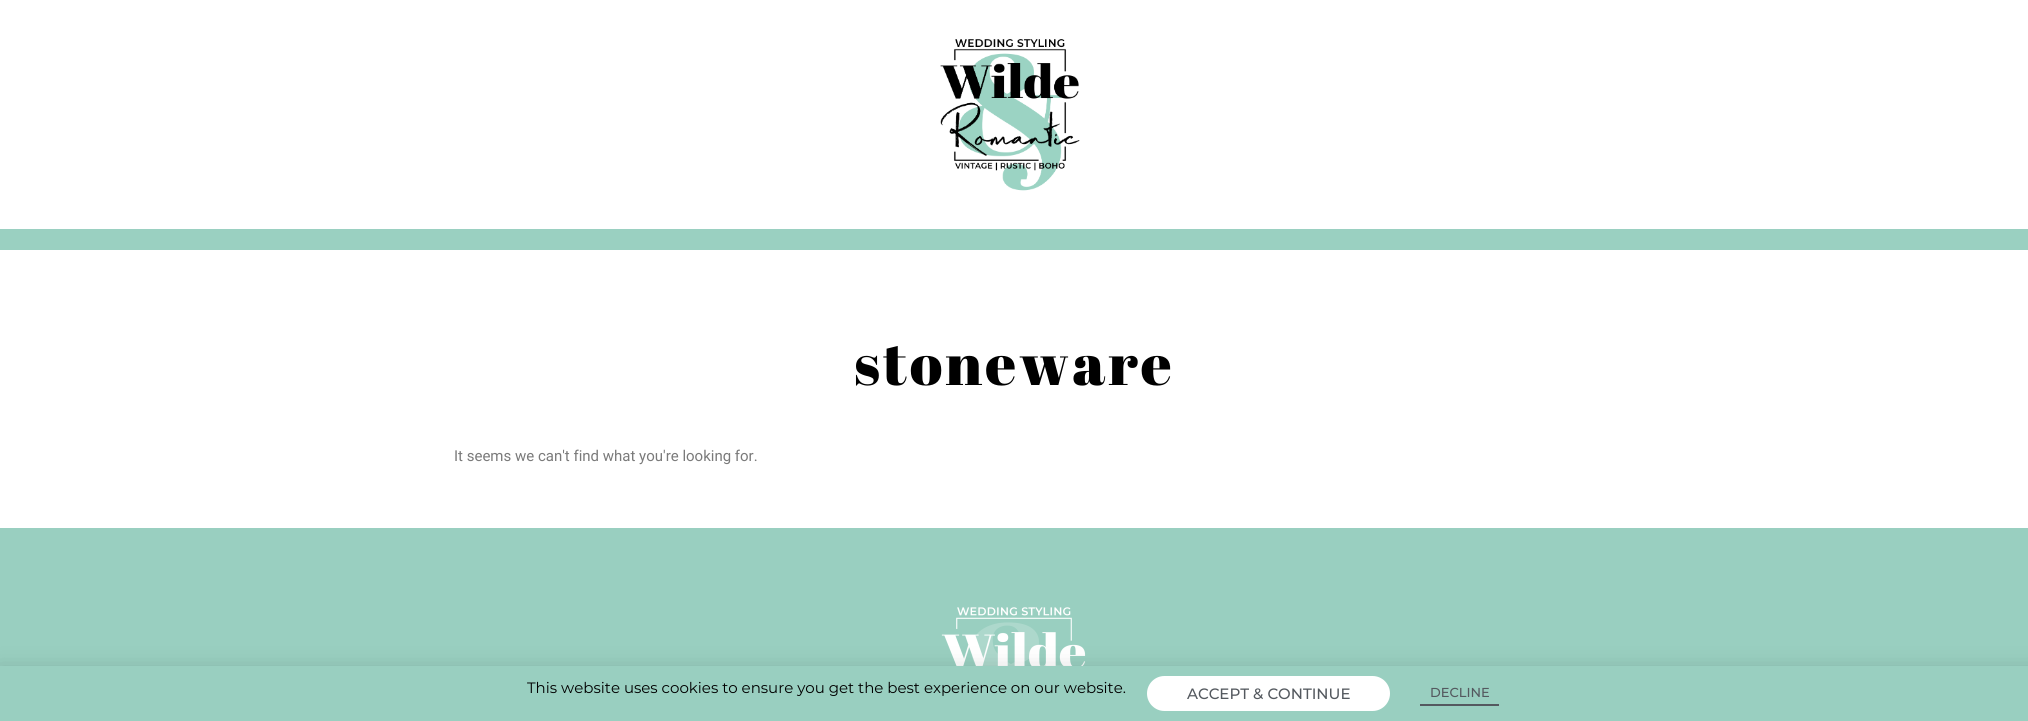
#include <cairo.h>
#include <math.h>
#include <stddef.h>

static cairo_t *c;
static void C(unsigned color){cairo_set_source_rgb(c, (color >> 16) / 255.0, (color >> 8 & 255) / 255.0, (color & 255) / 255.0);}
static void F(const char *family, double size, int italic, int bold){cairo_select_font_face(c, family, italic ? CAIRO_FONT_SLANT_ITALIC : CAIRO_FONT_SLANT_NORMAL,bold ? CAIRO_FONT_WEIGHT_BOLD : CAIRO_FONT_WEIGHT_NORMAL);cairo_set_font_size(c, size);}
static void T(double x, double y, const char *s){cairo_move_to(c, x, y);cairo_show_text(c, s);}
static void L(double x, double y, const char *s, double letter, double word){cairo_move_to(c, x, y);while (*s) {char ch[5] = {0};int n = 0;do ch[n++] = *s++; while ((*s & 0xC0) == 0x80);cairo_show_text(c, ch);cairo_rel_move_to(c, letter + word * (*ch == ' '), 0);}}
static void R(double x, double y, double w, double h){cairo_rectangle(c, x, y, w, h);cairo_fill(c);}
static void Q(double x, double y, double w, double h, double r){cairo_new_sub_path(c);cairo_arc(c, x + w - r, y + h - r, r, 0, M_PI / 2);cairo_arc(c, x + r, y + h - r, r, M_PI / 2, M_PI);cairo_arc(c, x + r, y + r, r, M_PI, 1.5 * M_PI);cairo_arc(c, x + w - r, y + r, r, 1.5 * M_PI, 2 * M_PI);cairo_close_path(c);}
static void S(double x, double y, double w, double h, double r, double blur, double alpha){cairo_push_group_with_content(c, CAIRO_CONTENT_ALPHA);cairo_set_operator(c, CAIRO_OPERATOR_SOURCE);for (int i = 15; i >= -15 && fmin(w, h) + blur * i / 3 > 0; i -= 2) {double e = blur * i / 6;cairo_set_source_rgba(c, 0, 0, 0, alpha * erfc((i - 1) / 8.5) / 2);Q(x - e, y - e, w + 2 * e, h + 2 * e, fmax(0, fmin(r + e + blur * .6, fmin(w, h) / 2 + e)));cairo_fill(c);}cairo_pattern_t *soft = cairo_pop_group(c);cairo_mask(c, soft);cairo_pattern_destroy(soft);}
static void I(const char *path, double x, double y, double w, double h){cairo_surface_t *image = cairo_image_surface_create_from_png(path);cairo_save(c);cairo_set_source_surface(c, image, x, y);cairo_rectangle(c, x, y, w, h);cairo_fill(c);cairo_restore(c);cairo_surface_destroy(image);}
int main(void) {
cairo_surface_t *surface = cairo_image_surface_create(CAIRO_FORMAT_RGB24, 2028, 721);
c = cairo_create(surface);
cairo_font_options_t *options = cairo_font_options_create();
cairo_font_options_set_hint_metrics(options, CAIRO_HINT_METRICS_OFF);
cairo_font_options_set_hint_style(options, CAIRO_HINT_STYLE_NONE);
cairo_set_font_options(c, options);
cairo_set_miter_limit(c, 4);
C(0xffffff);
cairo_paint(c);
I("1.png",940,39,140,152);
C(0x9ad0c1);
R(0,229,2028,21);
F("Abril Fatface",60,0,0);
C(0x000000);
L(854,385,"stoneware",3,0);
F("Roboto",15,0,0);
C(0x7a7a7a);
T(454,461,"It seems we can't find what you're looking for.");
C(0x99cfc0);
R(0,528,2028,138);
I("2.png",941,607,145,59);
C(0x000000);
S(-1,671,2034,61,0,11.5,.2);
C(0x99cfc0);
R(0,666,2028,55);
F("Montserrat",15,0,0);
C(0x000000);
T(527,693,"This website uses cookies to ensure you get the best experience on our website.");
C(0xffffff);
Q(1147,676,243,35,17.5);
cairo_fill(c);
F("Montserrat Medium",15,0,0);
C(0x54595f);
T(1187,699,"ACCEPT & CONTINUE");
R(1420,704,79,2);
F("Montserrat Medium",13,0,0);
T(1430,697,"DECLINE");
cairo_surface_write_to_png(surface, "o.png");
cairo_font_options_destroy(options);
cairo_destroy(c);
cairo_surface_destroy(surface);
return 0;
}
